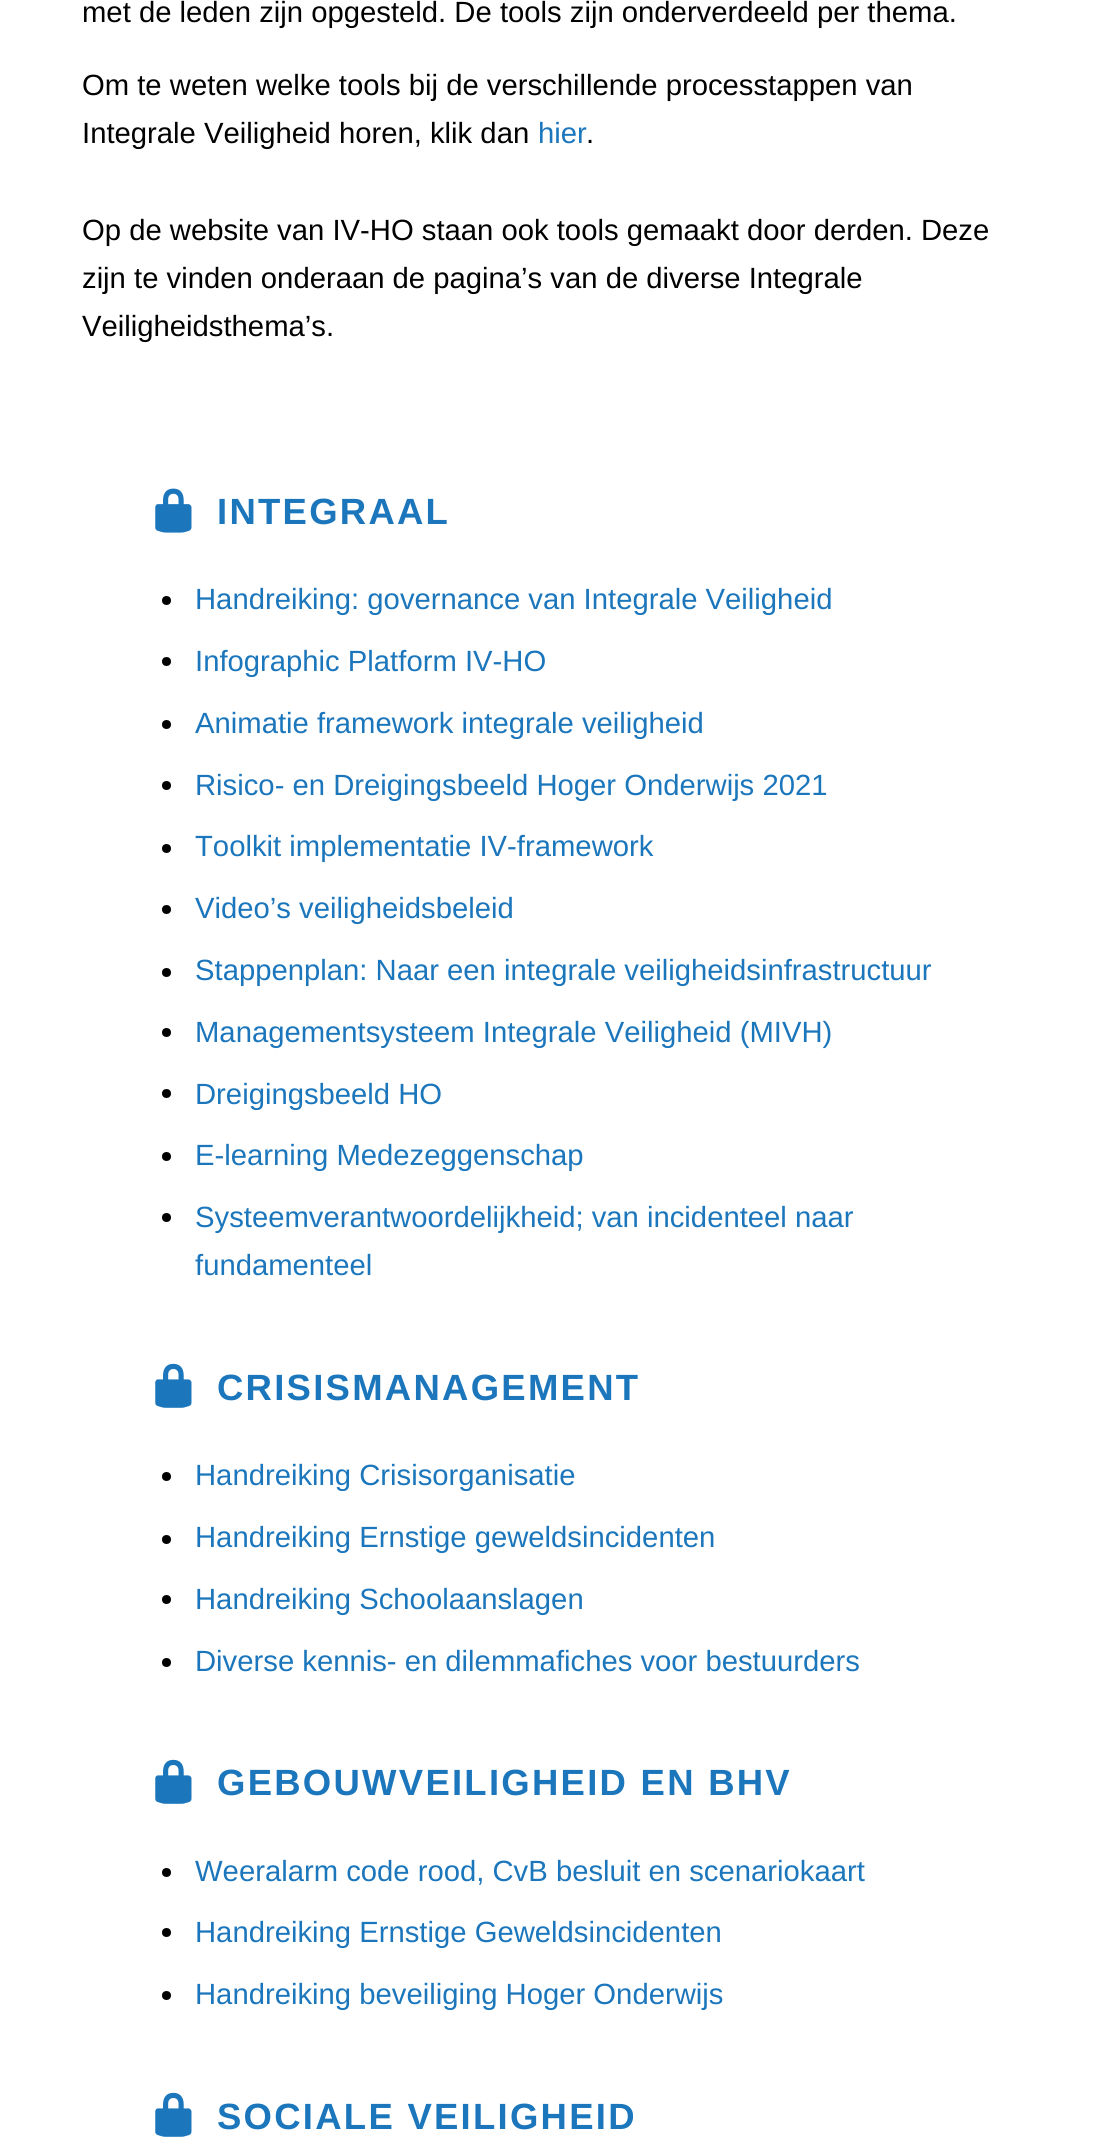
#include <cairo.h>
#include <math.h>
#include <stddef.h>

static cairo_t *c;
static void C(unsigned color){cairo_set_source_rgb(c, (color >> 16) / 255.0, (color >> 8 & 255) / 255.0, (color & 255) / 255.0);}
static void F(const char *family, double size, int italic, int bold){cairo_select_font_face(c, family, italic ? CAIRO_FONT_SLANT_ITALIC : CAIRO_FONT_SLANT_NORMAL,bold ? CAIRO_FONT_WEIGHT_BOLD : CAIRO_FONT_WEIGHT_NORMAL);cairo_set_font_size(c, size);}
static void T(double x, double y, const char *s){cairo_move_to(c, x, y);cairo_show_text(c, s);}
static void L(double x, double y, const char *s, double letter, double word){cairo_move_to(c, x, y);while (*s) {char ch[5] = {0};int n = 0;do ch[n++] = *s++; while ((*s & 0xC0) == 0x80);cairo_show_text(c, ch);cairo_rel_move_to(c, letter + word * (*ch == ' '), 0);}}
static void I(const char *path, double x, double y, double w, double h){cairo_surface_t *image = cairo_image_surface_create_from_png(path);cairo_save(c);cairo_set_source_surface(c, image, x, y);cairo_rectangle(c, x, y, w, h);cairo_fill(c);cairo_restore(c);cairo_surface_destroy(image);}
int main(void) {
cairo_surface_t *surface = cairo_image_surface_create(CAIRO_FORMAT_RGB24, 1098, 2149);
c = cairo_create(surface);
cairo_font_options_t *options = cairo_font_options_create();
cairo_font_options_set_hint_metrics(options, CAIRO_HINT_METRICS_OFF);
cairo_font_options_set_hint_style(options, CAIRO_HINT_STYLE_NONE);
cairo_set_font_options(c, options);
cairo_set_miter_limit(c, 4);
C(0xffffff);
cairo_paint(c);
F("Liberation Sans",29.25,0,0);
C(0x000000);
T(82,22,"met de leden zijn opgesteld. De tools zijn onderverdeeld per thema.");
T(82,95,"Om te weten welke tools bij de verschillende processtappen van");
T(82,143,"Integrale Veiligheid horen, klik dan");
C(0x1b76bc);
T(538,143,"hier");
C(0x000000);
T(586,143,".");
T(82,240,"Op de website van IV-HO staan ook tools gemaakt door derden. Deze");
T(82,288,"zijn te vinden onderaan de pagina’s van de diverse Integrale");
T(82,336,"Veiligheidsthema’s.");
I("1.png",155,488,37,45);
F("Liberation Sans",36.5,0,1);
C(0x1b76bc);
L(217,524,"INTEGRAAL",2.25,0);
C(0x000000);
cairo_new_path(c);
cairo_arc(c,166.5,600.5,4.5,0,2 * M_PI);
cairo_fill(c);
F("Liberation Sans",29.25,0,0);
C(0x1b76bc);
T(195,609,"Handreiking: governance van Integrale Veiligheid");
C(0x000000);
cairo_new_path(c);
cairo_arc(c,166.5,661.5,4.5,0,2 * M_PI);
cairo_fill(c);
C(0x1b76bc);
T(195,671,"Infographic Platform IV-HO");
C(0x000000);
cairo_new_path(c);
cairo_arc(c,166.5,724.5,4.5,0,2 * M_PI);
cairo_fill(c);
C(0x1b76bc);
T(195,733,"Animatie framework integrale veiligheid");
C(0x000000);
cairo_new_path(c);
cairo_arc(c,166.5,785.5,4.5,0,2 * M_PI);
cairo_fill(c);
C(0x1b76bc);
T(195,795,"Risico- en Dreigingsbeeld Hoger Onderwijs 2021");
C(0x000000);
cairo_new_path(c);
cairo_arc(c,166.5,848.5,4.5,0,2 * M_PI);
cairo_fill(c);
C(0x1b76bc);
T(195,856,"Toolkit implementatie IV-framework");
C(0x000000);
cairo_new_path(c);
cairo_arc(c,166.5,909.5,4.5,0,2 * M_PI);
cairo_fill(c);
C(0x1b76bc);
T(195,918,"Video’s veiligheidsbeleid");
C(0x000000);
cairo_new_path(c);
cairo_arc(c,166.5,972.5,4.5,0,2 * M_PI);
cairo_fill(c);
C(0x1b76bc);
T(195,980,"Stappenplan: Naar een integrale veiligheidsinfrastructuur");
C(0x000000);
cairo_new_path(c);
cairo_arc(c,166.5,1032.5,4.5,0,2 * M_PI);
cairo_fill(c);
C(0x1b76bc);
T(195,1042,"Managementsysteem Integrale Veiligheid (MIVH)");
C(0x000000);
cairo_new_path(c);
cairo_arc(c,166.5,1093.5,4.5,0,2 * M_PI);
cairo_fill(c);
C(0x1b76bc);
T(195,1104,"Dreigingsbeeld HO");
C(0x000000);
cairo_new_path(c);
cairo_arc(c,166.5,1156.5,4.5,0,2 * M_PI);
cairo_fill(c);
C(0x1b76bc);
T(195,1165,"E-learning Medezeggenschap");
C(0x000000);
cairo_new_path(c);
cairo_arc(c,166.5,1217.5,4.5,0,2 * M_PI);
cairo_fill(c);
C(0x1b76bc);
T(195,1227,"Systeemverantwoordelijkheid; van incidenteel naar");
T(195,1275,"fundamenteel");
I("2.png",155,1363,37,45);
F("Liberation Sans",36.5,0,1);
L(217,1400,"CRISISMANAGEMENT",2.25,0);
C(0x000000);
cairo_new_path(c);
cairo_arc(c,166.5,1476.5,4.5,0,2 * M_PI);
cairo_fill(c);
F("Liberation Sans",29.25,0,0);
C(0x1b76bc);
T(195,1485,"Handreiking Crisisorganisatie");
C(0x000000);
cairo_new_path(c);
cairo_arc(c,166.5,1539.5,4.5,0,2 * M_PI);
cairo_fill(c);
C(0x1b76bc);
T(195,1547,"Handreiking Ernstige geweldsincidenten");
C(0x000000);
cairo_new_path(c);
cairo_arc(c,166.5,1599.5,4.5,0,2 * M_PI);
cairo_fill(c);
C(0x1b76bc);
T(195,1609,"Handreiking Schoolaanslagen");
C(0x000000);
cairo_new_path(c);
cairo_arc(c,166.5,1662.5,4.5,0,2 * M_PI);
cairo_fill(c);
C(0x1b76bc);
T(195,1671,"Diverse kennis- en dilemmafiches voor bestuurders");
I("2.png",155,1759,37,45);
F("Liberation Sans",36.5,0,1);
L(217,1795,"GEBOUWVEILIGHEID EN BHV",2.25,0);
C(0x000000);
cairo_new_path(c);
cairo_arc(c,166.5,1872.5,4.5,0,2 * M_PI);
cairo_fill(c);
F("Liberation Sans",29.25,0,0);
C(0x1b76bc);
T(195,1881,"Weeralarm code rood, CvB besluit en scenariokaart");
C(0x000000);
cairo_new_path(c);
cairo_arc(c,166.5,1932.5,4.5,0,2 * M_PI);
cairo_fill(c);
C(0x1b76bc);
T(195,1942,"Handreiking Ernstige Geweldsincidenten");
C(0x000000);
cairo_new_path(c);
cairo_arc(c,166.5,1995.5,4.5,0,2 * M_PI);
cairo_fill(c);
C(0x1b76bc);
T(195,2004,"Handreiking beveiliging Hoger Onderwijs");
I("2.png",155,2092,37,45);
F("Liberation Sans",36.5,0,1);
L(217,2129,"SOCIALE VEILIGHEID",2.25,0);
cairo_surface_write_to_png(surface, "o.png");
cairo_font_options_destroy(options);
cairo_destroy(c);
cairo_surface_destroy(surface);
return 0;
}
